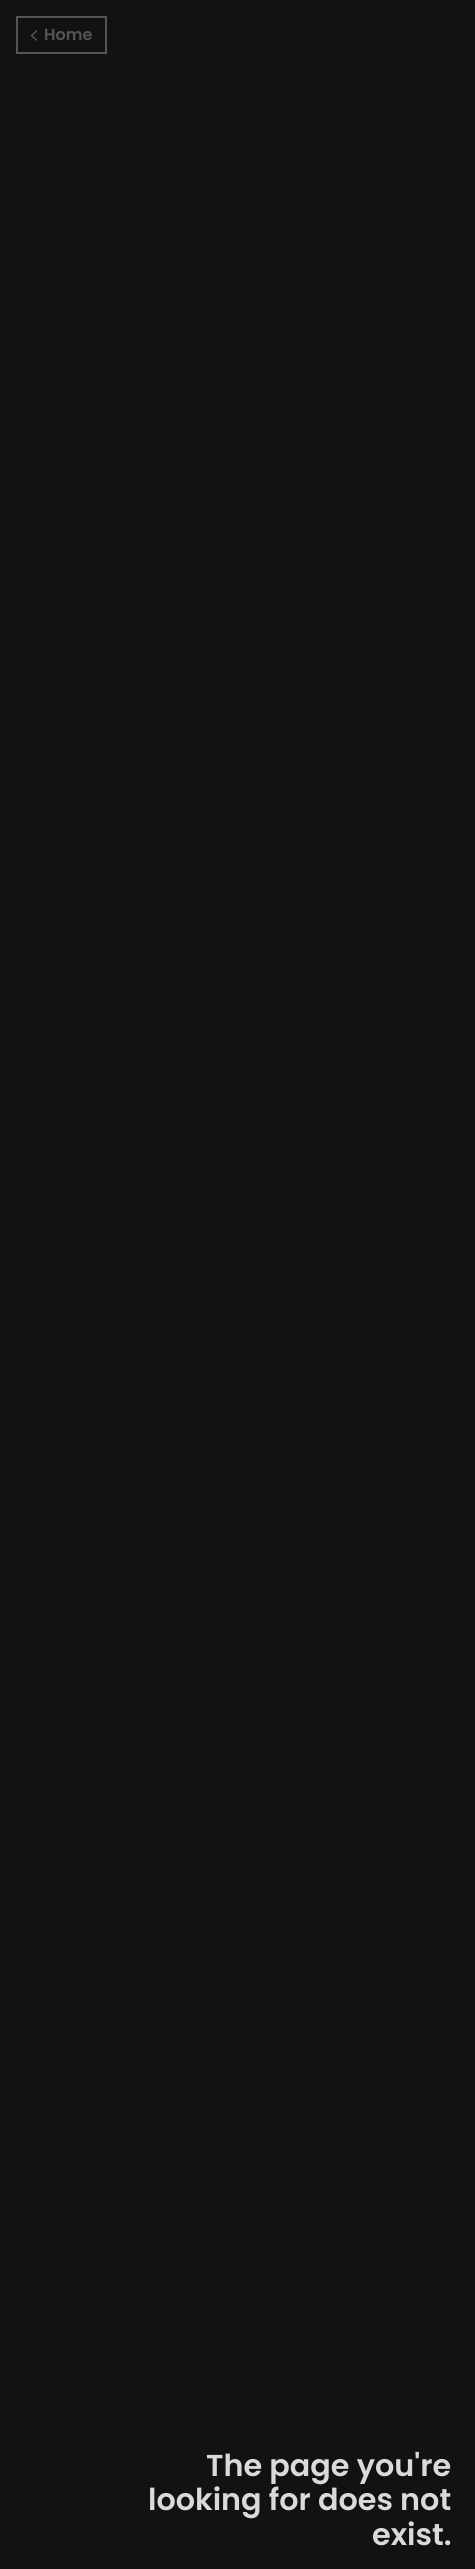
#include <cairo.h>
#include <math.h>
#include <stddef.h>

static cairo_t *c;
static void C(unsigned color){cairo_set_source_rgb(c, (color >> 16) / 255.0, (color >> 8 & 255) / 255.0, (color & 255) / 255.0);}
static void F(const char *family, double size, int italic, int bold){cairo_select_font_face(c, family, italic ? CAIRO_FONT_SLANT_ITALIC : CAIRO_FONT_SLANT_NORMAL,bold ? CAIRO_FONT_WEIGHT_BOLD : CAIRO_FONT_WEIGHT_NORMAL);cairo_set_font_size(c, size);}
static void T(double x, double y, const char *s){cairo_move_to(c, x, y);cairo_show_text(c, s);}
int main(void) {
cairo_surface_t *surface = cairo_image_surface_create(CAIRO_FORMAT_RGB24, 475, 2569);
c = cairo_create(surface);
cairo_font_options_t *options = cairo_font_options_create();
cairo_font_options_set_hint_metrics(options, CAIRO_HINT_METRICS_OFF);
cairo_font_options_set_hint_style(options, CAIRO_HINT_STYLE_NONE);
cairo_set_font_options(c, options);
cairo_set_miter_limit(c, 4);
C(0x121212);
cairo_paint(c);
cairo_rectangle(c,17,17,89,36);
C(0x555555);
cairo_stroke(c);
cairo_new_path(c);
cairo_move_to(c,37,30.5);
cairo_line_to(c,31.5,35.5);
cairo_line_to(c,37,40.5);
C(0x777777);
cairo_set_line_width(c,.9);
cairo_stroke(c);
F("Poppins SemiBold",16,0,0);
C(0x555555);
T(44,40,"Home");
F("Poppins SemiBold",30.25,0,0);
C(0xdadada);
T(206,2476,"The page you're");
T(148,2510,"looking for does not");
T(372,2545,"exist.");
cairo_surface_write_to_png(surface, "o.png");
cairo_font_options_destroy(options);
cairo_destroy(c);
cairo_surface_destroy(surface);
return 0;
}
